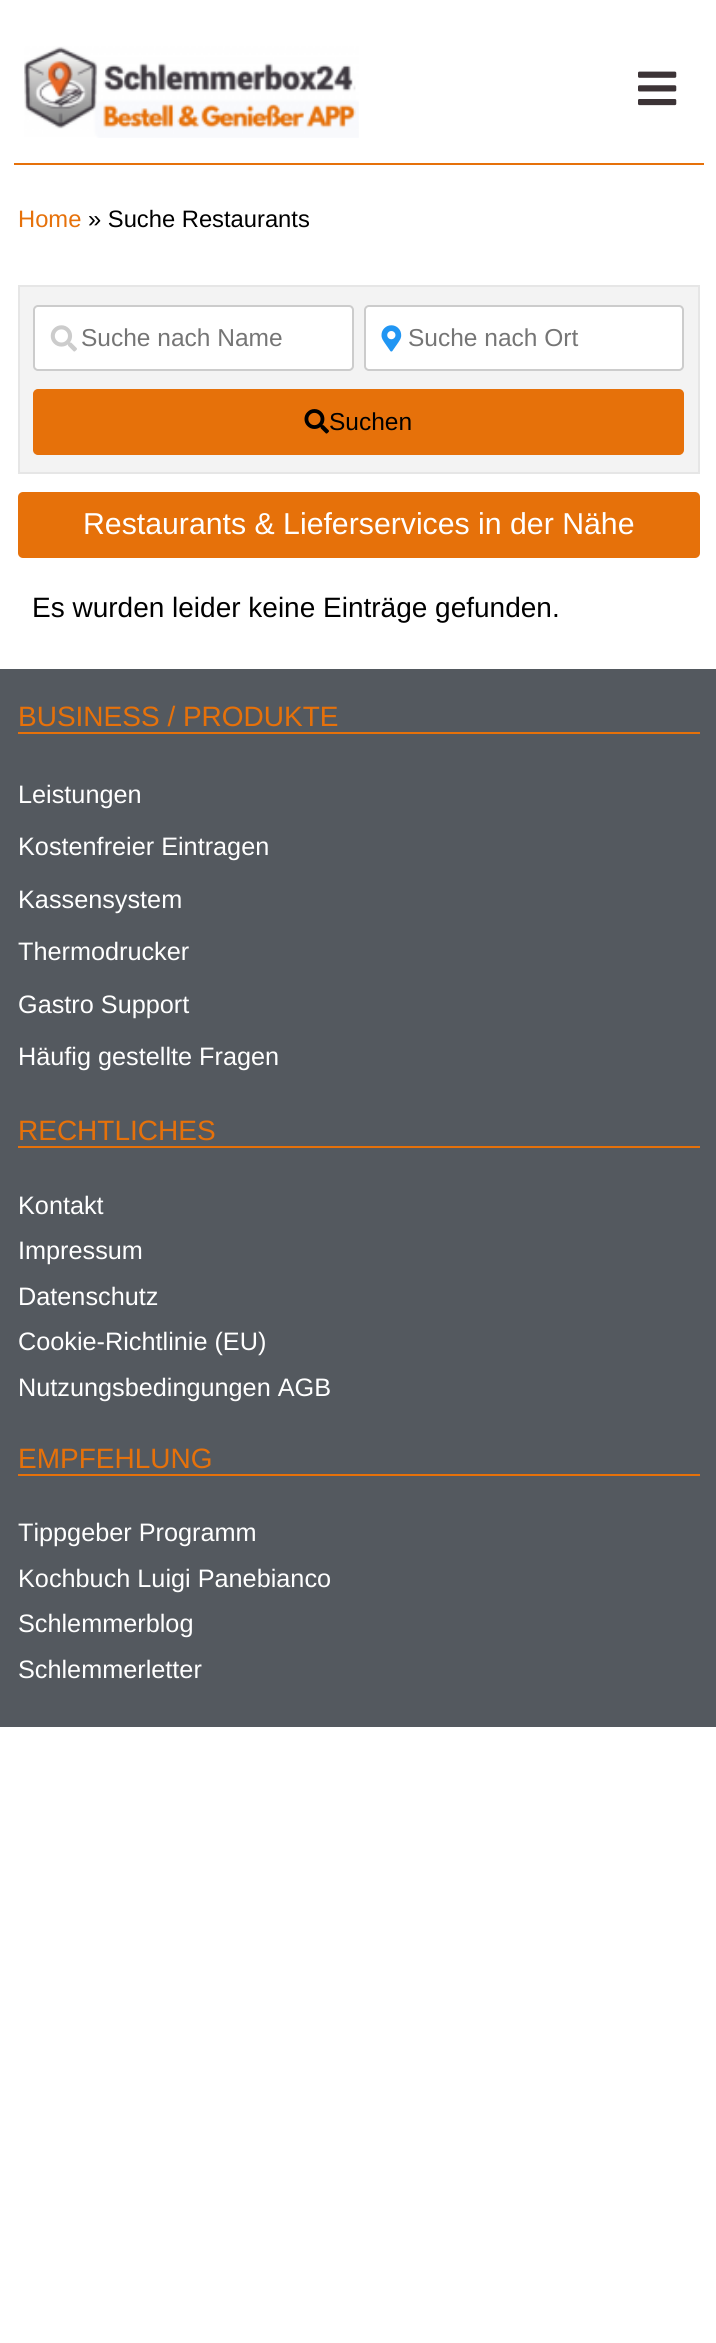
#include <cairo.h>
#include <math.h>
#include <stddef.h>

static cairo_t *c;
static void C(unsigned color){cairo_set_source_rgb(c, (color >> 16) / 255.0, (color >> 8 & 255) / 255.0, (color & 255) / 255.0);}
static void F(const char *family, double size, int italic, int bold){cairo_select_font_face(c, family, italic ? CAIRO_FONT_SLANT_ITALIC : CAIRO_FONT_SLANT_NORMAL,bold ? CAIRO_FONT_WEIGHT_BOLD : CAIRO_FONT_WEIGHT_NORMAL);cairo_set_font_size(c, size);}
static void T(double x, double y, const char *s){cairo_move_to(c, x, y);cairo_show_text(c, s);}
static void R(double x, double y, double w, double h){cairo_rectangle(c, x, y, w, h);cairo_fill(c);}
static void Q(double x, double y, double w, double h, double r){cairo_new_sub_path(c);cairo_arc(c, x + w - r, y + h - r, r, 0, M_PI / 2);cairo_arc(c, x + r, y + h - r, r, M_PI / 2, M_PI);cairo_arc(c, x + r, y + r, r, M_PI, 1.5 * M_PI);cairo_arc(c, x + w - r, y + r, r, 1.5 * M_PI, 2 * M_PI);cairo_close_path(c);}
static void I(const char *path, double x, double y, double w, double h){cairo_surface_t *image = cairo_image_surface_create_from_png(path);cairo_save(c);cairo_set_source_surface(c, image, x, y);cairo_rectangle(c, x, y, w, h);cairo_fill(c);cairo_restore(c);cairo_surface_destroy(image);}
int main(void) {
cairo_surface_t *surface = cairo_image_surface_create(CAIRO_FORMAT_RGB24, 716, 2343);
c = cairo_create(surface);
cairo_font_options_t *options = cairo_font_options_create();
cairo_font_options_set_hint_metrics(options, CAIRO_HINT_METRICS_OFF);
cairo_font_options_set_hint_style(options, CAIRO_HINT_STYLE_NONE);
cairo_set_font_options(c, options);
cairo_set_miter_limit(c, 4);
C(0xffffff);
cairo_paint(c);
C(0xe6710a);
R(14,163,690,2);
I("1.png",24,46,335,92);
I("2.png",638,71,39,35);
F("Liberation Sans",23.75,0,0);
T(18,227,"Home");
C(0x000000);
T(88,227,"» Suche Restaurants");
C(0xf3f3f3);
cairo_rectangle(c,19,286,680,187);
cairo_fill_preserve(c);
C(0xe6e6e6);
cairo_stroke(c);
C(0xffffff);
Q(34,306,319,64,4);
cairo_fill_preserve(c);
C(0xcccccc);
cairo_stroke(c);
I("3.png",50,325,27,27);
F("Liberation Sans",24.5,0,0);
C(0x757575);
T(81,346,"Suche nach Name");
C(0xffffff);
Q(365,306,318,64,4);
cairo_fill_preserve(c);
C(0xcccccc);
cairo_stroke(c);
I("4.png",381,325,21,27);
C(0x757575);
T(408,346,"Suche nach Ort");
C(0xe6710a);
Q(34,390,649,64,4);
cairo_fill_preserve(c);
cairo_stroke(c);
I("5.png",304,409,25,25);
C(0x000000);
T(329,430,"Suchen");
C(0xe6710a);
Q(18,492,682,66,5);
cairo_fill(c);
F("Liberation Sans",30.25,0,0);
C(0xffffff);
T(83,534,"Restaurants & Lieferservices in der Nähe");
F("Liberation Sans",28,0,0);
C(0x000000);
T(32,617,"Es wurden leider keine Einträge gefunden.");
C(0x54595f);
R(0,669,716,1058);
C(0xe6710a);
R(18,732,682,2);
T(18,726,"BUSINESS / PRODUKTE");
F("Liberation Sans",25.25,0,0);
C(0xffffff);
T(18,803,"Leistungen");
T(18,855,"Kostenfreier Eintragen");
T(18,908,"Kassensystem");
T(18,960,"Thermodrucker");
T(18,1013,"Gastro Support");
T(18,1065,"Häufig gestellte Fragen");
C(0xe6710a);
R(18,1146,682,2);
F("Liberation Sans",28,0,0);
T(18,1140,"RECHTLICHES");
F("Liberation Sans",25.25,0,0);
C(0xffffff);
T(18,1214,"Kontakt");
T(18,1259,"Impressum");
T(18,1305,"Datenschutz");
T(18,1350,"Cookie-Richtlinie (EU)");
T(18,1396,"Nutzungsbedingungen AGB");
C(0xe6710a);
R(18,1474,682,2);
F("Liberation Sans",28,0,0);
T(18,1468,"EMPFEHLUNG");
F("Liberation Sans",25.25,0,0);
C(0xffffff);
T(18,1541,"Tippgeber Programm");
T(18,1587,"Kochbuch Luigi Panebianco");
T(18,1632,"Schlemmerblog");
T(18,1678,"Schlemmerletter");
cairo_surface_write_to_png(surface, "o.png");
cairo_font_options_destroy(options);
cairo_destroy(c);
cairo_surface_destroy(surface);
return 0;
}
